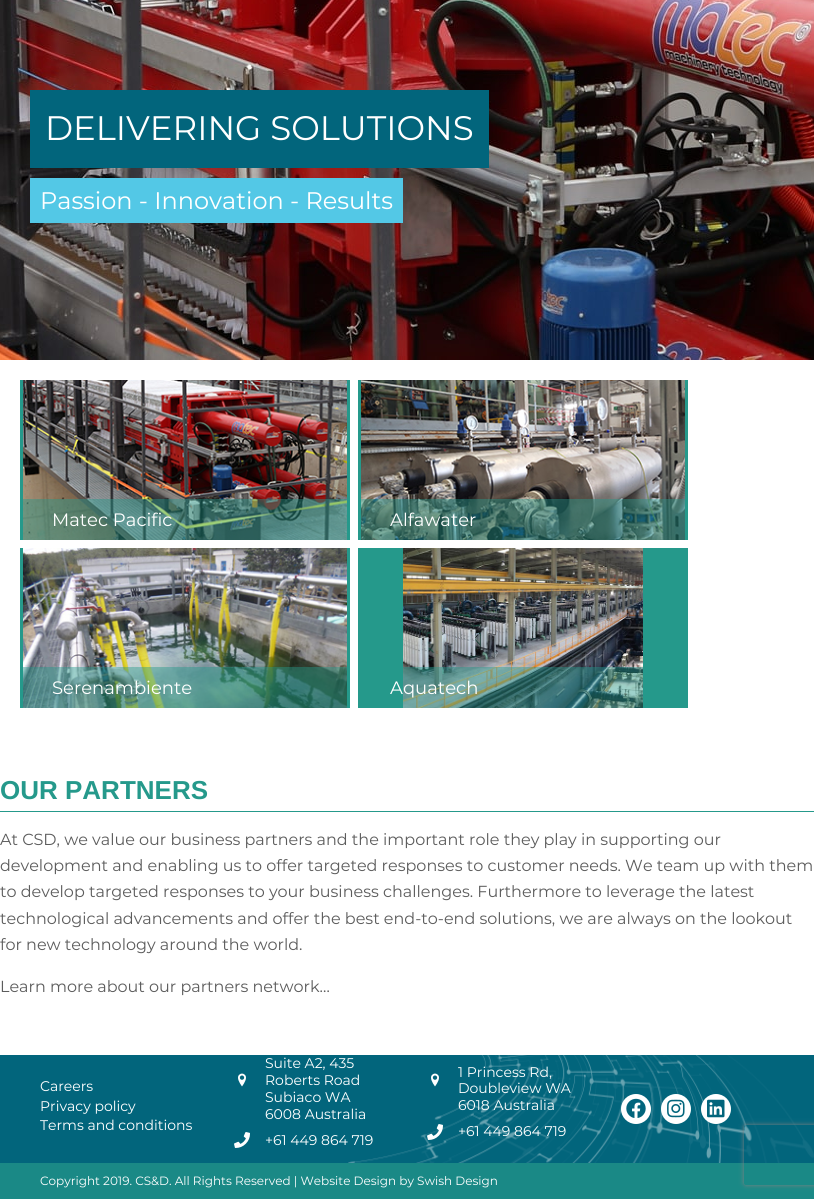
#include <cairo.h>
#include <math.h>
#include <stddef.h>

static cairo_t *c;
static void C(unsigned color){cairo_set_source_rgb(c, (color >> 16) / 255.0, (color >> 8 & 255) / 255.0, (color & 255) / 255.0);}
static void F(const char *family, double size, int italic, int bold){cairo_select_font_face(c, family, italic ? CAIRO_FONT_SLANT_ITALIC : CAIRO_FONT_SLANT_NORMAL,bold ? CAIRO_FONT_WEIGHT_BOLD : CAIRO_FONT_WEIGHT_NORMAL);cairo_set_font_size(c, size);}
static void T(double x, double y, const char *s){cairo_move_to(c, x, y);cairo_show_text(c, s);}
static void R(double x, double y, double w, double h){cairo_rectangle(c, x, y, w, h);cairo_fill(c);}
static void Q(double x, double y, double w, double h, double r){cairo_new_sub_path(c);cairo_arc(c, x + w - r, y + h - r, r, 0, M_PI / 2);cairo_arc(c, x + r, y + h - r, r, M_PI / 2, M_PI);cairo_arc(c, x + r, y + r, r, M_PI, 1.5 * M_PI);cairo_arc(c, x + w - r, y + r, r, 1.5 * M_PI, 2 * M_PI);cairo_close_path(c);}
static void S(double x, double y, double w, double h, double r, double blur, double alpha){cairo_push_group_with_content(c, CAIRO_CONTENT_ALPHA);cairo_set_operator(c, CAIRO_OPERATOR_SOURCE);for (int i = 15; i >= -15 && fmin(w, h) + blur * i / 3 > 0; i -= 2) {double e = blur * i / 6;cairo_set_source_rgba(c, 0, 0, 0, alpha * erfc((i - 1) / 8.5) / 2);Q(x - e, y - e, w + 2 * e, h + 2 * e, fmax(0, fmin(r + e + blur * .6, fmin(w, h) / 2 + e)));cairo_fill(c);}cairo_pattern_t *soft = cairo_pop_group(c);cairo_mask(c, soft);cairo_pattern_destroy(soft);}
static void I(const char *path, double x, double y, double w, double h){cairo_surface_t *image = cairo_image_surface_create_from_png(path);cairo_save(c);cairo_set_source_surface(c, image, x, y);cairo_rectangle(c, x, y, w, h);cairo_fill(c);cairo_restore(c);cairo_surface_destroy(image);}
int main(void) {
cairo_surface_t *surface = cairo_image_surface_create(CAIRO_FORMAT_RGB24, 814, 1199);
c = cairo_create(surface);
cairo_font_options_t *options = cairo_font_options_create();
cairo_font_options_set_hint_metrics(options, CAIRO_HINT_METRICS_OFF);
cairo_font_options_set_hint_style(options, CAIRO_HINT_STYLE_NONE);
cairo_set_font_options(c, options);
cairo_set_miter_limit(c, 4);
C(0xffffff);
cairo_paint(c);
I("1.png",0,0,814,360);
C(0x02657c);
R(30,90,459,78);
F("Montserrat Thin",34,0,0);
C(0xffffff);
T(45,140,"DELIVERING SOLUTIONS");
C(0x53c8e6);
R(30,178,373,45);
F("Montserrat Thin",24,0,0);
C(0xffffff);
T(40,209,"Passion - Innovation - Results");
C(0x25998b);
R(20,380,330,160);
I("2.png",23,380,324,160);
F("Montserrat Thin",18,0,0);
C(0xffffff);
T(52,526,"Matec Pacific");
C(0x25998b);
R(358,380,330,160);
I("3.png",361,380,324,160);
C(0xffffff);
T(390,526,"Alfawater");
C(0x25998b);
R(20,548,330,160);
I("4.png",23,548,324,160);
C(0xffffff);
T(52,694,"Serenambiente");
C(0x25998b);
R(358,548,330,160);
I("5.png",403,548,240,160);
cairo_save(c);
cairo_rectangle(c,358,548,330,160);
cairo_clip(c);
cairo_set_source_rgba(c,0.145,0.6,0.545,0.44);
cairo_set_fill_rule(c,CAIRO_FILL_RULE_EVEN_ODD);
cairo_new_path(c);
cairo_move_to(c,259,449);
cairo_line_to(c,787,449);
cairo_line_to(c,787,807);
cairo_line_to(c,259,807);
cairo_close_path(c);
cairo_move_to(c,359,509);
cairo_line_to(c,687,509);
cairo_line_to(c,687,667);
cairo_line_to(c,359,667);
cairo_close_path(c);
cairo_fill(c);
cairo_restore(c);
C(0xffffff);
T(390,694,"Aquatech");
F("Liberation Sans",26,0,1);
C(0x25998b);
T(0,799,"OUR PARTNERS");
R(0,811,814,1);
F("Montserrat Thin",16,0,0);
C(0x5c5c5c);
T(0,845,"At CSD, we value our business partners and the important role they play in supporting our");
T(0,871,"development and enabling us to offer targeted responses to customer needs. We team up with them");
T(0,897,"to develop targeted responses to your business challenges. Furthermore to leverage the latest");
T(0,924,"technological advancements and offer the best end-to-end solutions, we are always on the lookout");
T(0,950,"for new technology around the world.");
T(0,992,"Learn more about our partners network…");
C(0x02657c);
R(0,1055,814,108);
I("6.png",348,1055,466,108);
F("Montserrat Thin",14,0,0);
C(0xffffff);
T(40,1091,"Careers");
T(40,1111,"Privacy policy");
T(40,1130,"Terms and conditions");
I("7.png",238,1073,8,14);
T(265,1068,"Suite A2, 435");
T(265,1085,"Roberts Road");
T(265,1102,"Subiaco WA");
T(265,1119,"6008 Australia");
I("8.png",234,1132,16,16);
T(265,1145,"+61 449 864 719");
I("7.png",431,1073,8,14);
T(458,1077,"1 Princess Rd,");
T(458,1093,"Doubleview WA");
T(458,1110,"6018 Australia");
I("9.png",427,1124,16,16);
T(458,1136,"+61 449 864 719");
cairo_new_path(c);
cairo_arc(c,636,1109,15,0,2 * M_PI);
cairo_fill(c);
I("10.png",626,1098,20,20);
cairo_arc(c,676,1109,15,0,2 * M_PI);
cairo_fill(c);
I("11.png",667,1099,18,19);
cairo_arc(c,716,1109,15,0,2 * M_PI);
cairo_fill(c);
I("12.png",707,1099,18,19);
C(0x1a8986);
R(0,1163,814,36);
F("Montserrat Thin",12,0,0);
C(0xffffff);
T(40,1185,"Copyright 2019. CS&D. All Rights Reserved | Website Design by Swish Design");
cairo_save(c);
cairo_set_fill_rule(c,CAIRO_FILL_RULE_EVEN_ODD);
cairo_new_path(c);
cairo_move_to(c,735,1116);
cairo_line_to(c,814,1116);
cairo_line_to(c,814,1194);
cairo_line_to(c,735,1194);
cairo_close_path(c);
cairo_move_to(c,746,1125);
cairo_line_to(c,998,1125);
cairo_curve_to(c,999,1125,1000,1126,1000,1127);
cairo_line_to(c,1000,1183);
cairo_curve_to(c,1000,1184,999,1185,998,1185);
cairo_line_to(c,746,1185);
cairo_curve_to(c,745,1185,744,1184,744,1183);
cairo_line_to(c,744,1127);
cairo_curve_to(c,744,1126,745,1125,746,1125);
cairo_close_path(c);
cairo_clip(c);
C(0x808080);
S(744,1125,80,60,2,2.5,1);
cairo_restore(c);
cairo_surface_write_to_png(surface, "o.png");
cairo_font_options_destroy(options);
cairo_destroy(c);
cairo_surface_destroy(surface);
return 0;
}
